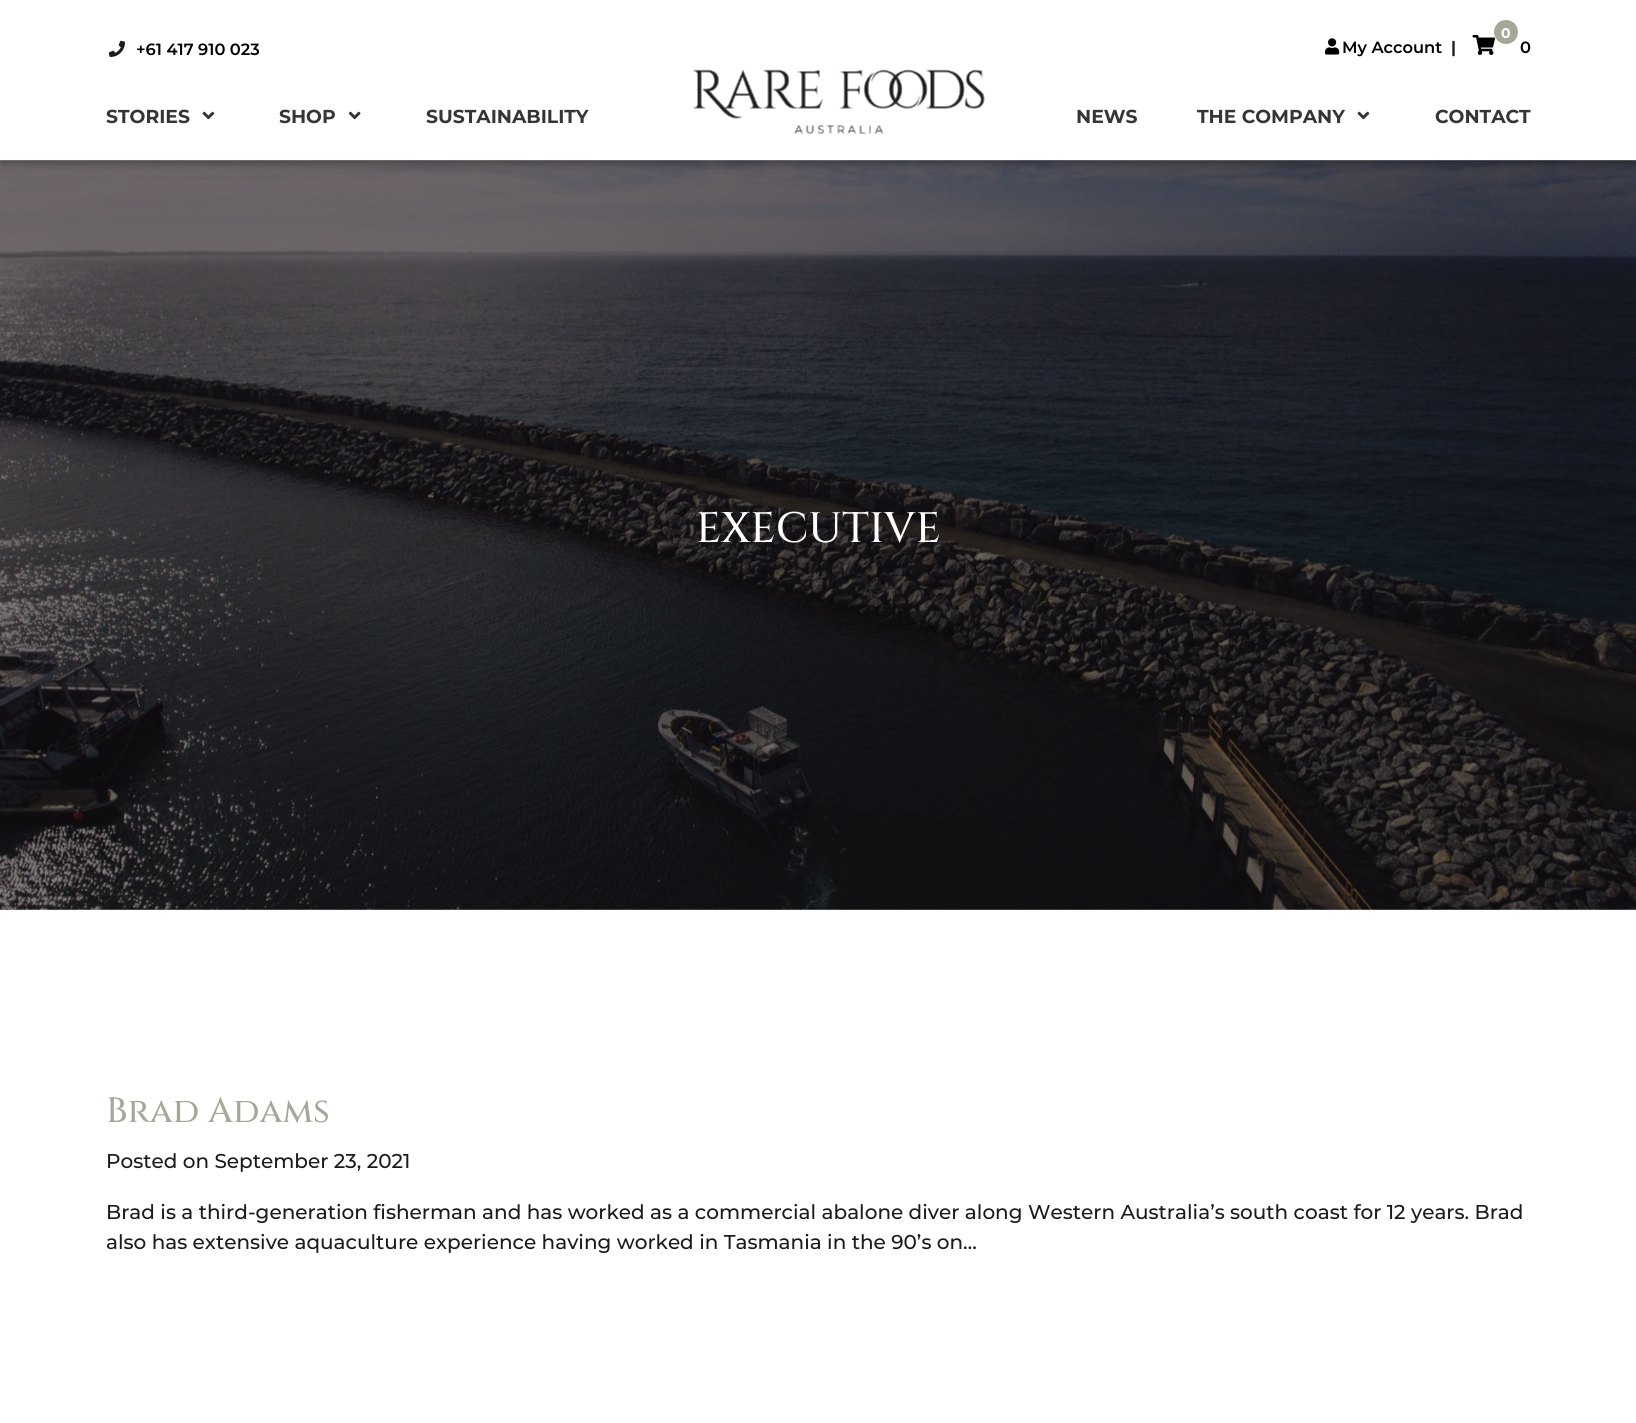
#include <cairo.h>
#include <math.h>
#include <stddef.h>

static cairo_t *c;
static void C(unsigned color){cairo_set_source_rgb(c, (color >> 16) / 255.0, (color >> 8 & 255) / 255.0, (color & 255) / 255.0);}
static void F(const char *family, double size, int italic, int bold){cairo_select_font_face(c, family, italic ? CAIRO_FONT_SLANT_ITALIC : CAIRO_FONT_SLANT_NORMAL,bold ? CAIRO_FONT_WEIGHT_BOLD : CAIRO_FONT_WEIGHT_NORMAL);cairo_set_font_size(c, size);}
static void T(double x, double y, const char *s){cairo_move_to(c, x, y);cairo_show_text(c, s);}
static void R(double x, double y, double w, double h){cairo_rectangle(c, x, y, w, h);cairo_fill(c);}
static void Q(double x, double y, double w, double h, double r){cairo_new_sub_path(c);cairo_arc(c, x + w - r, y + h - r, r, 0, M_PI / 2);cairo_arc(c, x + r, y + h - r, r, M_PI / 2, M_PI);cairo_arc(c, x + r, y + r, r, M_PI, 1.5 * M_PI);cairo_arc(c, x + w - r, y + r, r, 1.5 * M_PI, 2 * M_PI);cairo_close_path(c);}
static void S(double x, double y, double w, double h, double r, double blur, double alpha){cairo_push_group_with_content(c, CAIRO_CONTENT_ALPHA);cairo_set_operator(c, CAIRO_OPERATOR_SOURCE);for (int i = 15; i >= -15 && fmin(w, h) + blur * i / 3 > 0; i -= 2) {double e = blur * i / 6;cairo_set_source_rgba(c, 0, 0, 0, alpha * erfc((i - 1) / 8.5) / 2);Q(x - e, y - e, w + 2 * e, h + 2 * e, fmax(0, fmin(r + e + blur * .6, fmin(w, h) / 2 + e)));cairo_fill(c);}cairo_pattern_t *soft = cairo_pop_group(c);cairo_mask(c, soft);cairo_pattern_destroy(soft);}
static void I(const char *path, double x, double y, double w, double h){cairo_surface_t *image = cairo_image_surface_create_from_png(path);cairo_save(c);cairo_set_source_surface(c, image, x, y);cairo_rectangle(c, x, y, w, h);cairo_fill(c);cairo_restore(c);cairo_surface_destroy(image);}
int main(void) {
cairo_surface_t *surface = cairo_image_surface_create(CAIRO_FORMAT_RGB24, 1636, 1423);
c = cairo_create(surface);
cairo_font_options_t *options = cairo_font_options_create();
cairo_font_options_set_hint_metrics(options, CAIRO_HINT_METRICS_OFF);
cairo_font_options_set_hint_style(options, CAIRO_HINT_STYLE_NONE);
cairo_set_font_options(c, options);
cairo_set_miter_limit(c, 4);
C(0xffffff);
cairo_paint(c);
I("7.png",0,160,1636,750);
C(0x000000);
S(0,3,1636,160,0,5,.35);
C(0xffffff);
R(0,0,1636,160);
I("1.png",108,40,17,17);
F("Montserrat SemiBold",16.25,0,0);
C(0x000000);
T(136,55,"+61 417 910 023");
I("2.png",1472,35,23,20);
C(0xa7a798);
cairo_arc(c,1506,32,12,0,2 * M_PI);
cairo_fill(c);
F("Montserrat",14,0,1);
C(0xffffff);
T(1501,38,"0");
I("3.png",1325,38,15,17);
F("Montserrat SemiBold",16.25,0,0);
C(0x000000);
T(1342,53,"My Account");
F("Montserrat",16.25,0,1);
C(0x1b1b1b);
T(1451,53,"|");
F("Montserrat SemiBold",16.25,0,0);
C(0x000000);
T(1520,53,"0");
I("4.png",693,69,292,65);
F("Montserrat",18.75,0,1);
C(0x353535);
T(106,123,"STORIES");
I("5.png",202,111,13,9);
T(279,123,"SHOP");
I("6.png",348,111,13,9);
T(426,123,"SUSTAINABILITY");
T(1076,123,"NEWS");
T(1197,123,"THE COMPANY");
I("5.png",1357,111,13,9);
T(1435,123,"CONTACT");
F("Cinzel Medium",42.5,0,0);
C(0xffffff);
T(696,542,"EXECUTIVE");
F("Cinzel Medium",35,0,0);
C(0xa7a799);
T(106,1122,"Brad Adams");
F("Montserrat Medium",20,0,0);
C(0x1b1b1b);
T(106,1168,"Posted on September 23, 2021");
T(106,1219,"Brad is a third-generation fisherman and has worked as a commercial abalone diver along Western Australia’s south coast for 12 years. Brad");
T(106,1249,"also has extensive aquaculture experience having worked in Tasmania in the 90’s on…");
cairo_surface_write_to_png(surface, "o.png");
cairo_font_options_destroy(options);
cairo_destroy(c);
cairo_surface_destroy(surface);
return 0;
}
